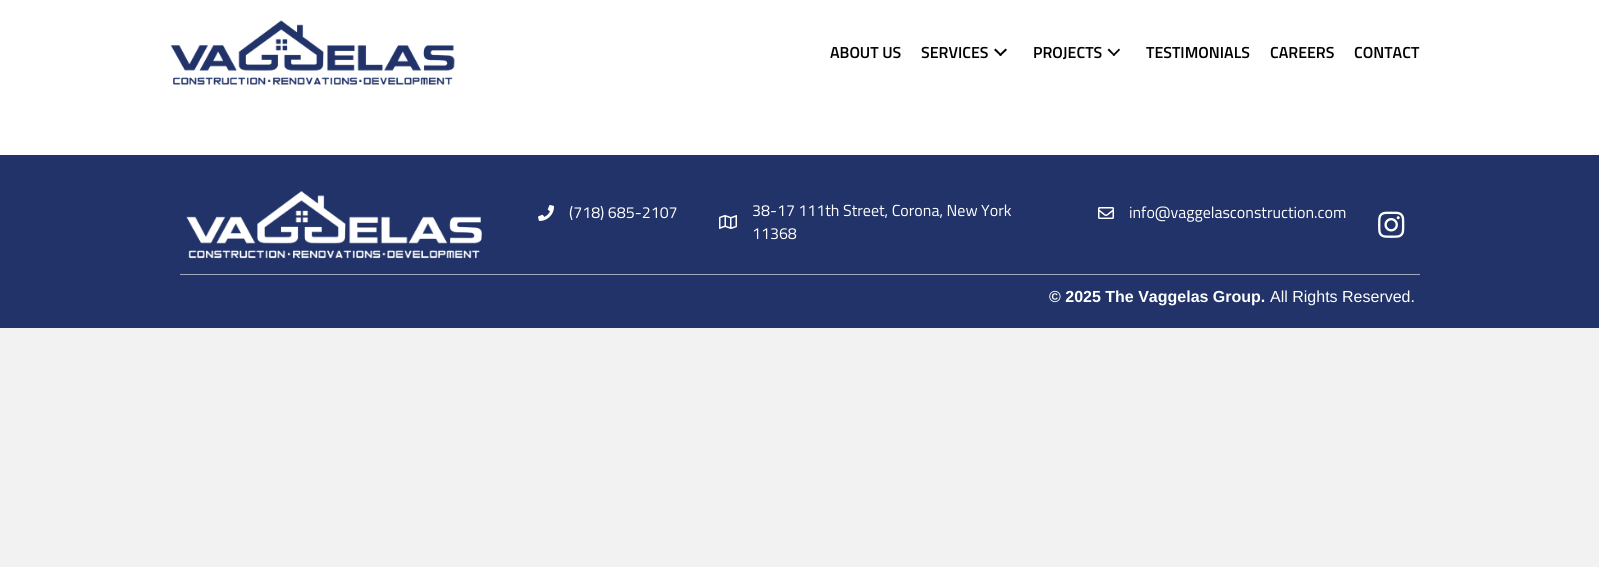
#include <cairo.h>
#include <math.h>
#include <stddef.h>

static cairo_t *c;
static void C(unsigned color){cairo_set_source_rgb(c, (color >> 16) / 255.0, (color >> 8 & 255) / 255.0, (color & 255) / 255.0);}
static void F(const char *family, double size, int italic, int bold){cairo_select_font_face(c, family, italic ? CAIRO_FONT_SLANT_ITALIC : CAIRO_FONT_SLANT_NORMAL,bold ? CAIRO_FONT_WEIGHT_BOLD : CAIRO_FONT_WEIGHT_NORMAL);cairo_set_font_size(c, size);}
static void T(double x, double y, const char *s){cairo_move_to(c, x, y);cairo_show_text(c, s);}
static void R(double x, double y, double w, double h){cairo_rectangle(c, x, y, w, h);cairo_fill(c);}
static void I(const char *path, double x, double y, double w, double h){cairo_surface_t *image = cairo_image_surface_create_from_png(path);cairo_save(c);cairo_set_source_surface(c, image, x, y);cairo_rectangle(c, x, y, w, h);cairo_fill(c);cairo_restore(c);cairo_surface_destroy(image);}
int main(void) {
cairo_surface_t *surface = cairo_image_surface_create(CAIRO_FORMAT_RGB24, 1599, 567);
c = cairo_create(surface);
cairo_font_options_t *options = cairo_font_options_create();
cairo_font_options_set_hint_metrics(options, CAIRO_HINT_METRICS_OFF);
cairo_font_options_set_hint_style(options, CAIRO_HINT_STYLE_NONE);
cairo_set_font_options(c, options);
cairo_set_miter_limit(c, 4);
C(0xf2f2f2);
cairo_paint(c);
C(0xffffff);
R(0,0,1599,155);
I("1.png",170,20,285,65);
F("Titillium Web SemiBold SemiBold",16,0,0);
C(0x000000);
T(830,58,"ABOUT US");
T(921,58,"SERVICES");
cairo_new_path(c);
cairo_move_to(c,1005.5,48.5);
cairo_line_to(c,1007,50);
cairo_line_to(c,1000.5,56);
cairo_line_to(c,999,55);
cairo_close_path(c);
cairo_fill(c);
cairo_new_path(c);
cairo_move_to(c,995.5,48.5);
cairo_line_to(c,1002,55);
cairo_line_to(c,1000.5,56);
cairo_line_to(c,994,50);
cairo_close_path(c);
cairo_fill(c);
T(1033,58,"PROJECTS");
cairo_new_path(c);
cairo_move_to(c,1119,48.5);
cairo_line_to(c,1120,50);
cairo_line_to(c,1114,56);
cairo_line_to(c,1112.5,55);
cairo_close_path(c);
cairo_fill(c);
cairo_new_path(c);
cairo_move_to(c,1109,48.5);
cairo_line_to(c,1115,55);
cairo_line_to(c,1114,56);
cairo_line_to(c,1107.5,50);
cairo_close_path(c);
cairo_fill(c);
T(1146,58,"TESTIMONIALS");
T(1270,58,"CAREERS");
T(1354,58,"CONTACT");
C(0x213368);
R(0,155,1599,173);
I("2.png",186,191,296,68);
I("3.png",538,205,16,16);
F("Titillium Web",16,0,0);
C(0xffffff);
T(569,218,"(718) 685-2107");
I("4.png",719,215,18,14);
T(752,216,"38-17 111th Street, Corona, New York");
T(752,239,"11368");
I("5.png",1098,207,16,12);
T(1129,218,"info@vaggelasconstruction.com");
I("6.png",1378,211,27,27);
C(0xa0a7be);
R(180,274,1240,1);
F("Liberation Sans",16,0,1);
C(0xffffff);
T(1049,302,"© 2025 The Vaggelas Group.");
F("Liberation Sans",16,0,0);
T(1270,302,"All Rights Reserved.");
cairo_surface_write_to_png(surface, "o.png");
cairo_font_options_destroy(options);
cairo_destroy(c);
cairo_surface_destroy(surface);
return 0;
}
